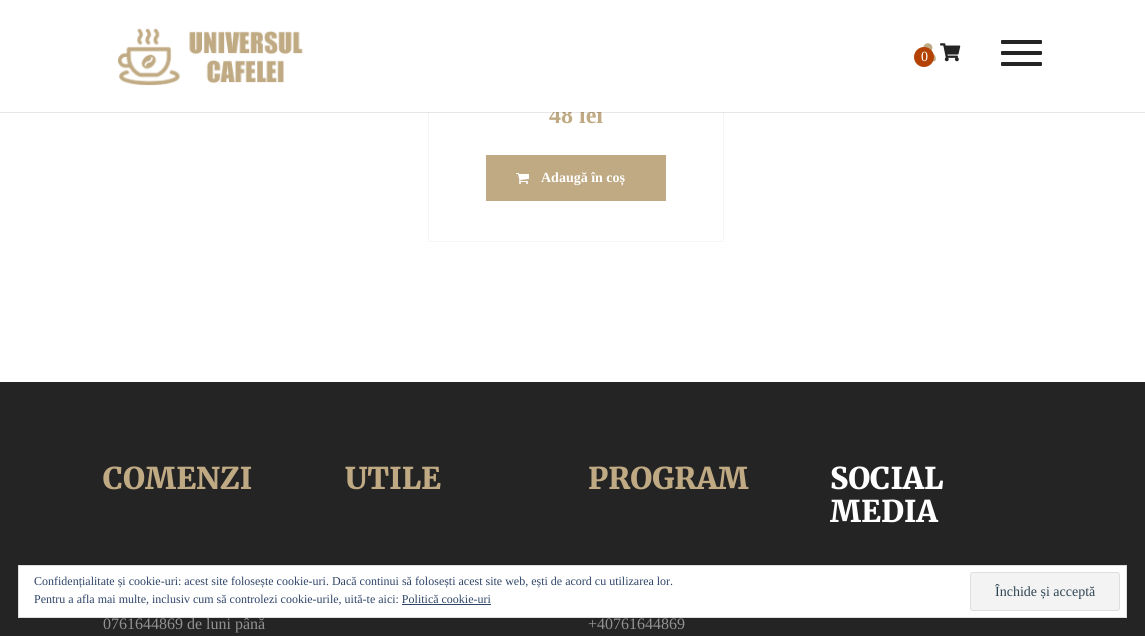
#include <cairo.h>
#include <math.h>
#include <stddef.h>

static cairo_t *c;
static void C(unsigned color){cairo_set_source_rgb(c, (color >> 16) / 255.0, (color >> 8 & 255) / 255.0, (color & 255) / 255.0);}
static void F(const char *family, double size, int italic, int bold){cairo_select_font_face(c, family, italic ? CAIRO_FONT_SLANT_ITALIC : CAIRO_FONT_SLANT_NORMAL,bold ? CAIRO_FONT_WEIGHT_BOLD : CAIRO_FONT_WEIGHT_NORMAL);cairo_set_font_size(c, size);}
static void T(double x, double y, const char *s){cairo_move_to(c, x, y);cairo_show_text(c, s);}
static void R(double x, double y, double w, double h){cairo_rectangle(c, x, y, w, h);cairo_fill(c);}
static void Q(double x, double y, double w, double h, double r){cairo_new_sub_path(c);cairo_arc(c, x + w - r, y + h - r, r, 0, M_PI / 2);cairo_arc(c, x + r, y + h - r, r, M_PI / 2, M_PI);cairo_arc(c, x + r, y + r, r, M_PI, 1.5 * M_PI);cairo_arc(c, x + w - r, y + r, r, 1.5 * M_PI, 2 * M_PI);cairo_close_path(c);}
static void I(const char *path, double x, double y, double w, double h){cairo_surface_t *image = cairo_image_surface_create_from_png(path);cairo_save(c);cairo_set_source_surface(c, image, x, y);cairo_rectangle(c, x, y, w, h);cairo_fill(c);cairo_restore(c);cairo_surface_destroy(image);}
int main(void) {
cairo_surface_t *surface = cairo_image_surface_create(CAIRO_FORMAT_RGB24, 1145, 636);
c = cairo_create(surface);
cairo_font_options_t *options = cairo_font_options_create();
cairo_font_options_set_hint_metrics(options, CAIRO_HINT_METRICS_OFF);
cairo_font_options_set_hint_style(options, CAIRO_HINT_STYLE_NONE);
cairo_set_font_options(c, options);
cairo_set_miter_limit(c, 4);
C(0xffffff);
cairo_paint(c);
cairo_rectangle(c,428.5,-.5,295,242);
C(0xf6f6f6);
cairo_set_line_width(c,1);
cairo_stroke(c);
F("Liberation Serif",24,0,1);
C(0xc0aa83);
T(549,123,"48 lei");
C(0xffffff);
R(428,0,296,112);
cairo_set_source_rgba(c,0,0,0,0.1);
R(0,112,1145,1);
I("1.png",118,28,185,58);
C(0x242424);
Q(1001,40,41,4,1);
cairo_fill(c);
Q(1001,51,41,4,1);
cairo_fill(c);
Q(1001,62,41,4,1);
cairo_fill(c);
I("2.png",923,43,13,19);
C(0xb34204);
cairo_arc(c,924,57,10,0,2 * M_PI);
cairo_fill(c);
F("Liberation Serif",14,0,0);
C(0xffffff);
T(921,61,"0");
I("3.png",940,43,21,19);
C(0xc0aa83);
R(486,155,180,46);
I("4.png",516,173,13,11);
F("Liberation Serif",14,0,1);
C(0xffffff);
T(541,182,"Adaugă în coș");
C(0x242424);
R(0,382,1145,254);
F("Merriweather Light",30,0,0);
C(0xc0aa83);
T(103,489,"COMENZI");
F("Liberation Serif",16,0,0);
C(0x929292);
T(103,629,"0761644869 de luni până");
F("Merriweather Light",30,0,0);
C(0xc0aa83);
T(345,489,"UTILE");
T(588,489,"PROGRAM");
F("Liberation Serif",16,0,0);
C(0x929292);
T(588,629,"+40761644869");
F("Merriweather Light",30,0,0);
C(0xffffff);
T(830,489,"SOCIAL");
T(830,522,"MEDIA");
cairo_rectangle(c,18.5,565.5,1108,52);
cairo_fill_preserve(c);
C(0xdedede);
cairo_stroke(c);
F("Liberation Serif",12,0,0);
C(0x2e4467);
T(34,585,"Confidențialitate și cookie-uri: acest site folosește cookie-uri. Dacă continui să folosești acest site web, ești de acord cu utilizarea lor.");
T(34,603,"Pentru a afla mai multe, inclusiv cum să controlezi cookie-urile, uită-te aici: Politică cookie-uri");
C(0xf3f3f3);
Q(970.5,572.5,149,38,2.5);
cairo_fill_preserve(c);
C(0xdedede);
cairo_stroke(c);
F("Liberation Serif",14,0,0);
C(0x2e4453);
T(995,596,"Închide și acceptă");
C(0x2e4467);
R(402,604,89,1);
cairo_surface_write_to_png(surface, "o.png");
cairo_font_options_destroy(options);
cairo_destroy(c);
cairo_surface_destroy(surface);
return 0;
}
